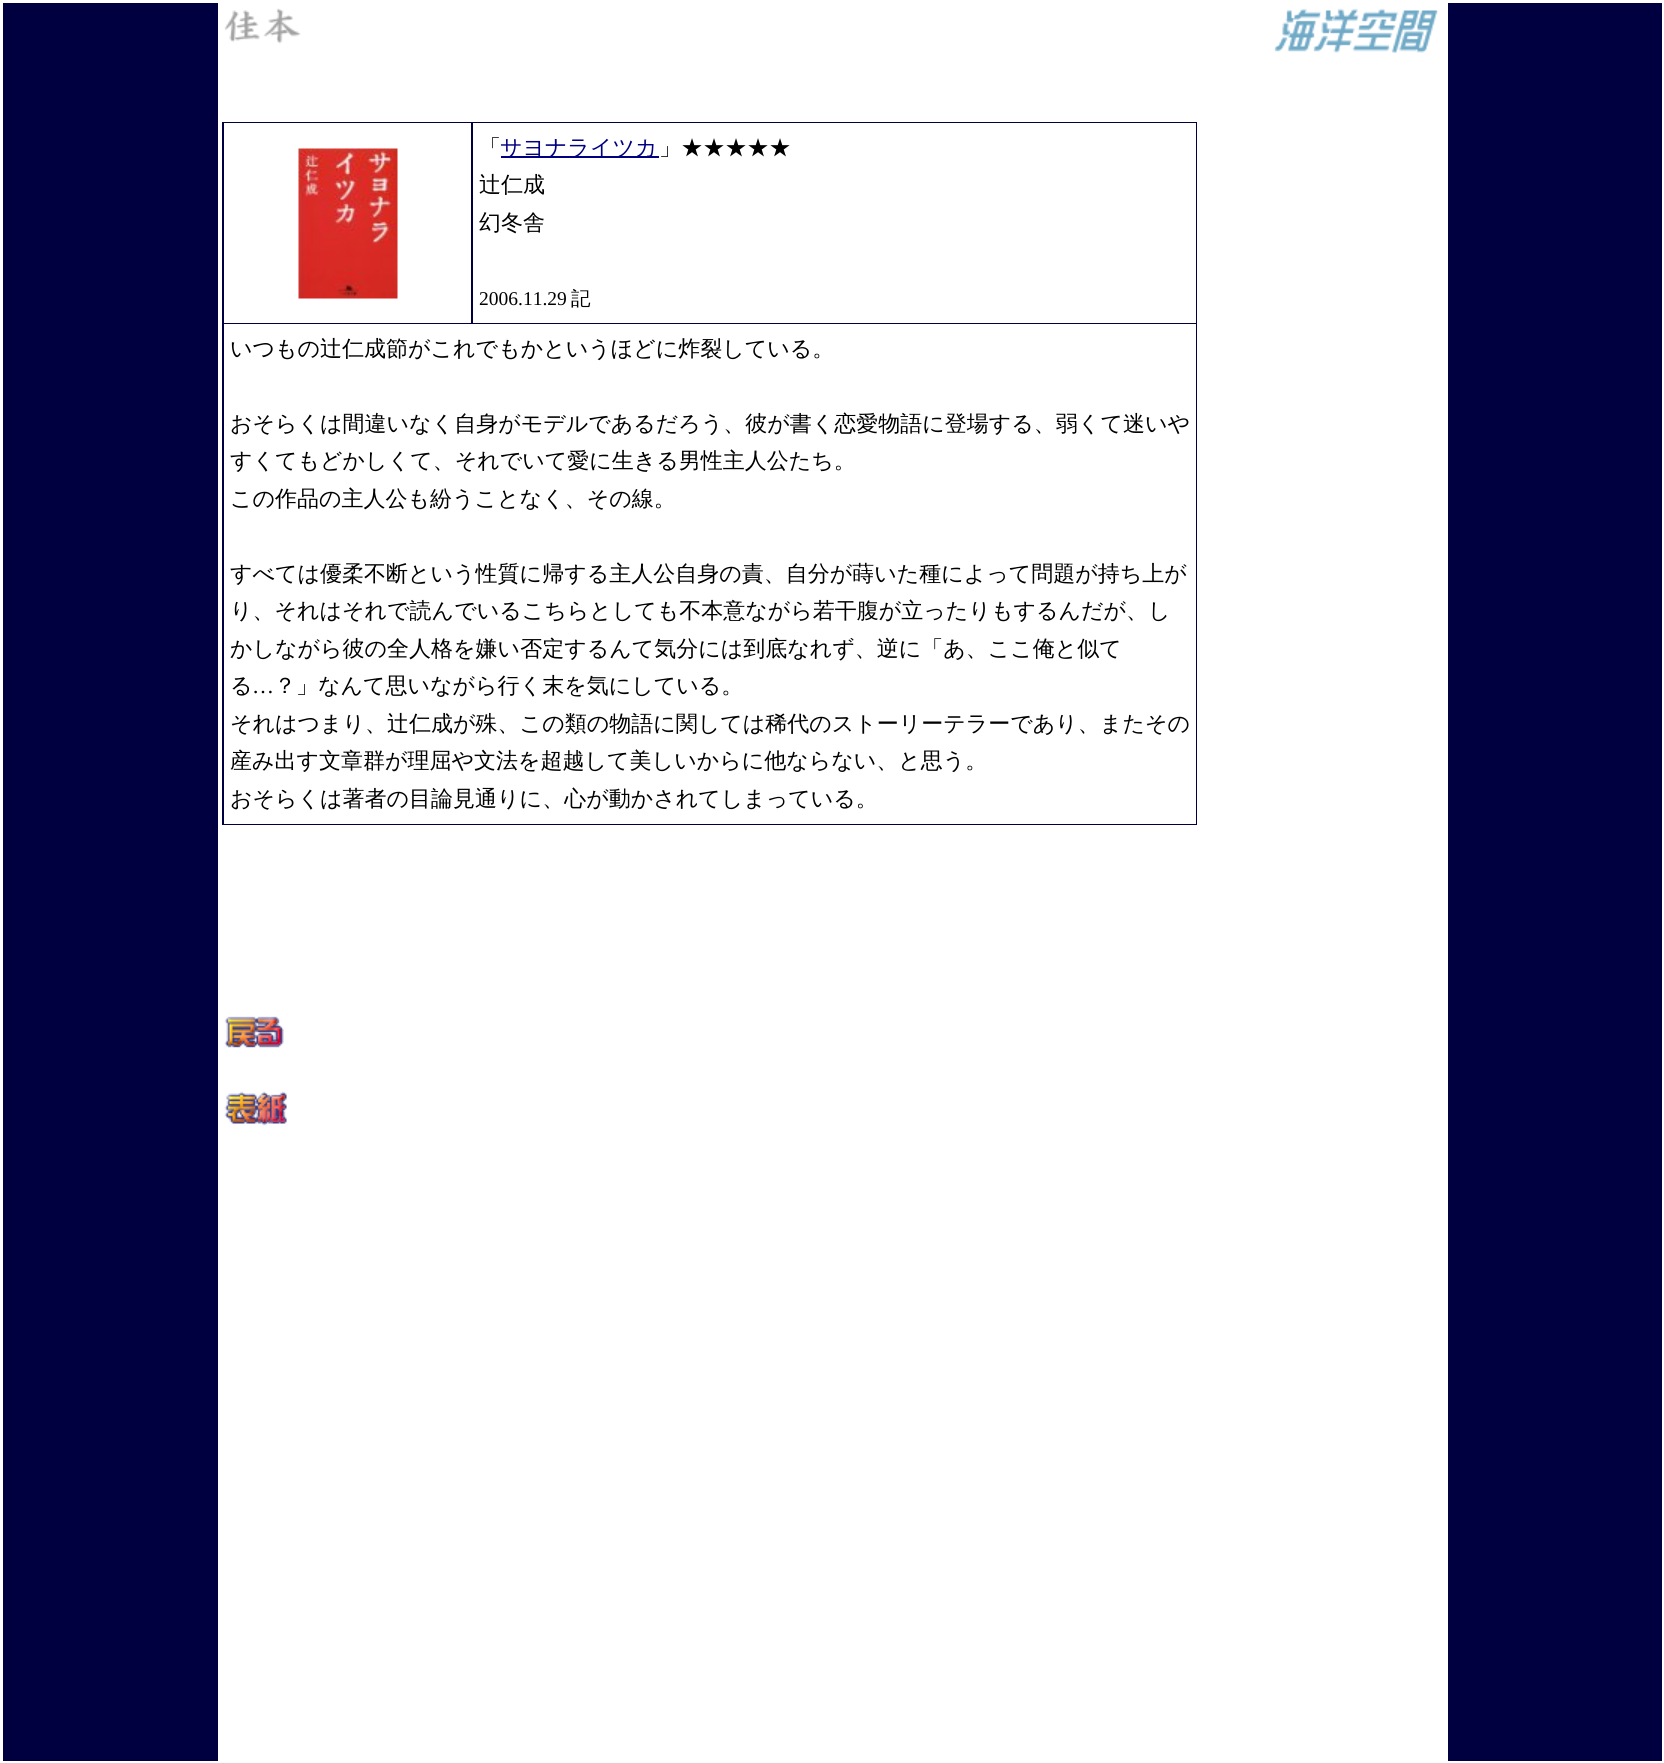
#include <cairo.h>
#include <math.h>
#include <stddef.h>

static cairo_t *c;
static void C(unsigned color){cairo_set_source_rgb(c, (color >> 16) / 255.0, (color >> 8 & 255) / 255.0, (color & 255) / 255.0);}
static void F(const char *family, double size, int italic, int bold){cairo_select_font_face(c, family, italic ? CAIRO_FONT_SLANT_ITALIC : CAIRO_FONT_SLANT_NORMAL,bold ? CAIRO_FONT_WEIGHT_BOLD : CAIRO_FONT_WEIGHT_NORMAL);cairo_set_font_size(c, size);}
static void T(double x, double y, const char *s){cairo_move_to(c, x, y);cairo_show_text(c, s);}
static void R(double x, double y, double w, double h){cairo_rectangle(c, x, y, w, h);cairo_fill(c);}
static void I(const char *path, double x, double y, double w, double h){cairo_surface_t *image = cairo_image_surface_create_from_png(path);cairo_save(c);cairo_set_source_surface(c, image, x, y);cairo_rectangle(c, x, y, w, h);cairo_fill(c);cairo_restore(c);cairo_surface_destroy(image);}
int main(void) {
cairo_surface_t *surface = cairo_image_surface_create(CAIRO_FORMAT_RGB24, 1664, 1763);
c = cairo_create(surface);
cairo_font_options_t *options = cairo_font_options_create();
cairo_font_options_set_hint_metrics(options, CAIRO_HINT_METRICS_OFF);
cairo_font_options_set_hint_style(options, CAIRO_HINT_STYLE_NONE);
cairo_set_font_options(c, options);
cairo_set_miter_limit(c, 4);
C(0xffffff);
cairo_paint(c);
C(0x000040);
R(3,3,215,1758);
I("1.png",224,8,77,36);
I("2.png",1274,8,164,45);
R(222,122,975,703);
C(0xffffff);
R(224,123,247,200);
I("3.png",298,148,100,151);
R(473,123,723,200);
F("WenQuanYi Zen Hei Medium",22,0,0);
C(0x000000);
T(479,155,"「");
C(0x000080);
R(501,156,158,2);
T(500,155,"サヨナライツカ");
C(0x000000);
T(659,155,"」★★★★★");
T(479,192,"辻仁成");
T(479,230,"幻冬舎");
F("Liberation Serif",19.5,0,0);
T(479,305,"2006.11.29");
F("WenQuanYi Zen Hei Medium",19.5,0,0);
T(571,305,"記");
C(0xffffff);
R(224,324,972,500);
F("WenQuanYi Zen Hei Medium",22,0,0);
C(0x000000);
T(230,356,"いつもの辻仁成節がこれでもかというほどに炸裂している。");
T(230,431,"おそらくは間違いなく自身がモデルであるだろう、彼が書く恋愛物語に登場する、弱くて迷いや");
T(230,468,"すくてもどかしくて、それでいて愛に生きる男性主人公たち。");
T(230,506,"この作品の主人公も紛うことなく、その線。");
T(230,581,"すべては優柔不断という性質に帰する主人公自身の責、自分が蒔いた種によって問題が持ち上が");
T(230,618,"り、それはそれで読んでいるこちらとしても不本意ながら若干腹が立ったりもするんだが、し");
T(230,656,"かしながら彼の全人格を嫌い否定するんて気分には到底なれず、逆に「あ、ここ俺と似て");
T(230,693,"る");
F("Liberation Serif",22,0,0);
T(252,693,"…");
F("WenQuanYi Zen Hei Medium",22,0,0);
T(274,693,"？」なんて思いながら行く末を気にしている。");
T(230,731,"それはつまり、辻仁成が殊、この類の物語に関しては稀代のストーリーテラーであり、またその");
T(230,768,"産み出す文章群が理屈や文法を超越して美しいからに他ならない、と思う。");
T(230,806,"おそらくは著者の目論見通りに、心が動かされてしまっている。");
I("4.png",224,1016,60,32);
I("5.png",224,1091,63,35);
C(0x000040);
R(1448,3,214,1758);
cairo_surface_write_to_png(surface, "o.png");
cairo_font_options_destroy(options);
cairo_destroy(c);
cairo_surface_destroy(surface);
return 0;
}
